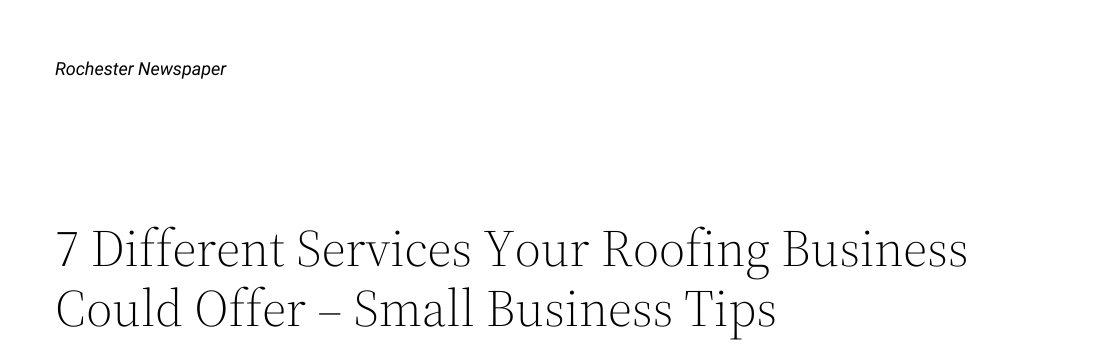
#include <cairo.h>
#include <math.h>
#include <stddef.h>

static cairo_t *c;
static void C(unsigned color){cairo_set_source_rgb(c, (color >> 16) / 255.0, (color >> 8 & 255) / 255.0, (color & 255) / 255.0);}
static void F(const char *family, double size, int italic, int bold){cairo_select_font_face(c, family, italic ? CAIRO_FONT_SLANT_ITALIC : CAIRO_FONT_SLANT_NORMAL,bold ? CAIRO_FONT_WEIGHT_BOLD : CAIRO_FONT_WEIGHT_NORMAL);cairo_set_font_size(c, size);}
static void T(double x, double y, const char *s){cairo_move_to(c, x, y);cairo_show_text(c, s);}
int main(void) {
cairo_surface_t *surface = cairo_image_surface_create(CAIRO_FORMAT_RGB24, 1102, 364);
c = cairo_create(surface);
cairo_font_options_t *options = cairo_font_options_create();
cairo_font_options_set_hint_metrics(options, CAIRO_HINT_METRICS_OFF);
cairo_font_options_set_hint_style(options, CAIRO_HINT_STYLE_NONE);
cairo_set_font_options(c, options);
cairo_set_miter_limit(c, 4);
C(0xffffff);
cairo_paint(c);
F("Roboto",18,1,0);
C(0x000000);
T(55,75,"Rochester Newspaper");
F("Source Serif 4 Light",52,0,0);
T(55,266,"7 Different Services Your Roofing Business");
T(55,326,"Could Offer – Small Business Tips");
cairo_surface_write_to_png(surface, "o.png");
cairo_font_options_destroy(options);
cairo_destroy(c);
cairo_surface_destroy(surface);
return 0;
}
